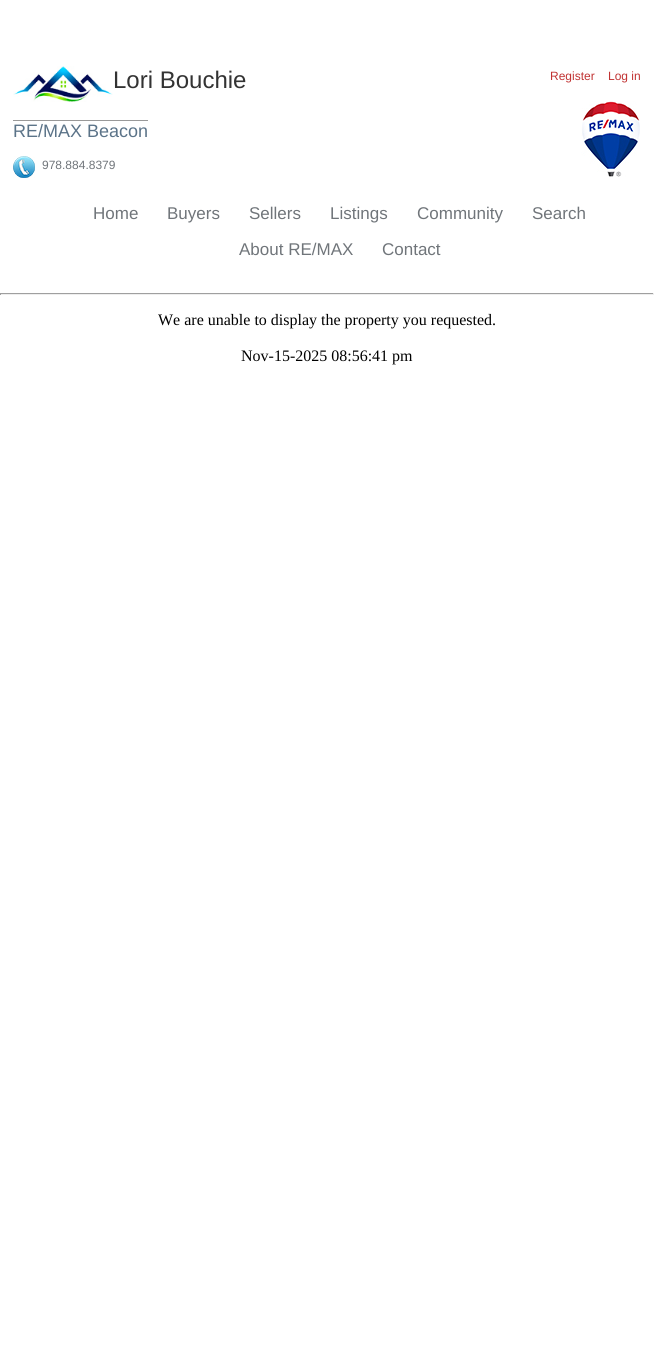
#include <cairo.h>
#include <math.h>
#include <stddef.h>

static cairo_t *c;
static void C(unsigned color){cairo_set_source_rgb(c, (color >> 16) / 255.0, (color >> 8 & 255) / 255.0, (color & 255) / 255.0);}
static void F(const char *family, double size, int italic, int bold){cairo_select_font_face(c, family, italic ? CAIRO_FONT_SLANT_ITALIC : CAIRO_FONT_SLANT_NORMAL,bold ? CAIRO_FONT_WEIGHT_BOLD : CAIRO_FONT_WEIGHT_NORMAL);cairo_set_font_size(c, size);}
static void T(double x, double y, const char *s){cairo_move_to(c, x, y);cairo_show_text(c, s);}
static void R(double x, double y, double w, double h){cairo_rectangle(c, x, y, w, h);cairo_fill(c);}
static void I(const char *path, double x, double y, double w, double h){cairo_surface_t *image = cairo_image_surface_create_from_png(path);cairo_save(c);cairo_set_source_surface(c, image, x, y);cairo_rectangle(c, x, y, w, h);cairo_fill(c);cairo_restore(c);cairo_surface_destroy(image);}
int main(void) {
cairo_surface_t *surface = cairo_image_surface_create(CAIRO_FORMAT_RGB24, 654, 1356);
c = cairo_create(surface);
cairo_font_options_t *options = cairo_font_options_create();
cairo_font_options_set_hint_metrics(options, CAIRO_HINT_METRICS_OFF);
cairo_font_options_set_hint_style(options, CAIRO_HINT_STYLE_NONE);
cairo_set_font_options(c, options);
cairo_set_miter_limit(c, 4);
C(0xffffff);
cairo_paint(c);
I("1.png",13,66,100,36);
F("Liberation Sans",24,0,0);
C(0x333333);
T(113,88,"Lori Bouchie");
C(0x999999);
R(13,120,135,1);
F("Liberation Sans",18,0,0);
C(0x5b7388);
T(13,137,"RE/MAX Beacon");
I("2.png",13,156,22,22);
F("Liberation Sans",12,0,0);
C(0x70757a);
T(42,169,"978.884.8379");
C(0xc13333);
T(550,80,"Register");
T(608,80,"Log in");
I("3.png",581,101,59,76);
F("Liberation Sans",17,0,0);
C(0x70757a);
T(93,219,"Home");
T(167,219,"Buyers");
T(249,219,"Sellers");
T(330,219,"Listings");
T(417,219,"Community");
T(532,219,"Search");
T(239,255,"About RE/MAX");
T(382,255,"Contact");
C(0x9f9f9f);
R(0,293,654,1);
C(0xeeeeee);
R(653,293,1,2);
R(0,294,654,1);
C(0x9f9f9f);
R(0,293,1,2);
F("Liberation Serif",16,0,0);
C(0x000000);
T(158,325,"We are unable to display the property you requested.");
T(241,361,"Nov-15-2025 08:56:41 pm");
cairo_surface_write_to_png(surface, "o.png");
cairo_font_options_destroy(options);
cairo_destroy(c);
cairo_surface_destroy(surface);
return 0;
}
